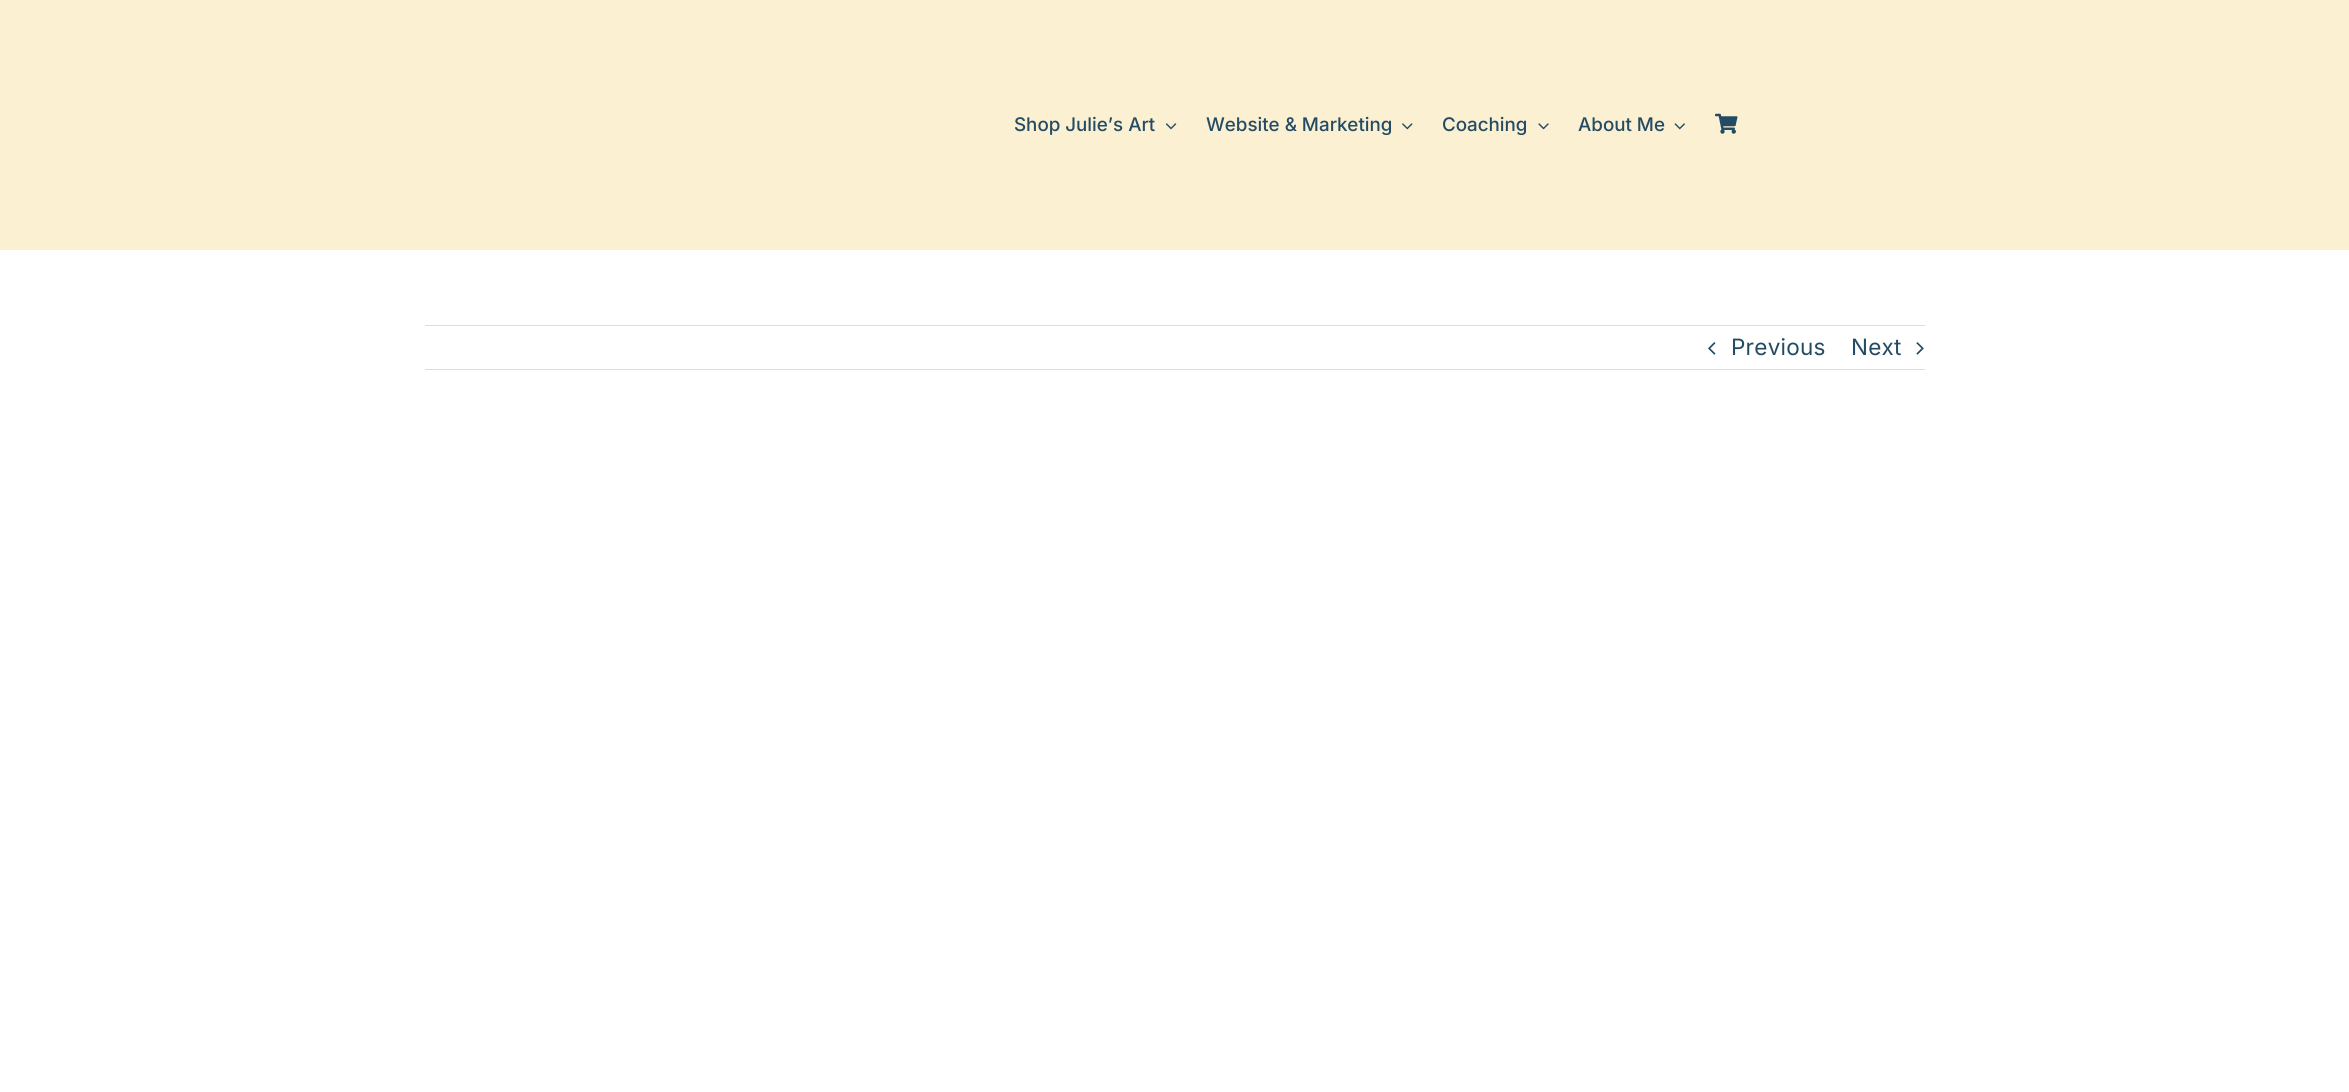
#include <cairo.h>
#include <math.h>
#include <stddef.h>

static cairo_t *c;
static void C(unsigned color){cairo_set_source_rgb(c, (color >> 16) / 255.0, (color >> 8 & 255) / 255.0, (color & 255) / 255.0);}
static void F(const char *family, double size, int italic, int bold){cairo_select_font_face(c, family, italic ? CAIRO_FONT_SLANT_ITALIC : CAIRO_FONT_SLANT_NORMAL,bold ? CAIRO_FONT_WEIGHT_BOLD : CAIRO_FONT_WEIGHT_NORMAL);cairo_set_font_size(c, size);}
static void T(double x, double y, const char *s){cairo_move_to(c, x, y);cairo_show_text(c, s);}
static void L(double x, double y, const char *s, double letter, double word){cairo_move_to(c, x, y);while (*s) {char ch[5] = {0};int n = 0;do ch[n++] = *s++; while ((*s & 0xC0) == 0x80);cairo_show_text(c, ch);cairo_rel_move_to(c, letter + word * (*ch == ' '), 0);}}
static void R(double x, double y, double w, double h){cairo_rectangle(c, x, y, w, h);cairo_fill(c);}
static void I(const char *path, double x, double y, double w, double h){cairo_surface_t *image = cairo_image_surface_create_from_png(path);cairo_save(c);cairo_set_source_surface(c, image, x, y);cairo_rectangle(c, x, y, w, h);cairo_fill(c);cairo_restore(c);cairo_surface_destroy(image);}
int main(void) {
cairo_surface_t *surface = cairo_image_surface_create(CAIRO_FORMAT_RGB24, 2349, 1092);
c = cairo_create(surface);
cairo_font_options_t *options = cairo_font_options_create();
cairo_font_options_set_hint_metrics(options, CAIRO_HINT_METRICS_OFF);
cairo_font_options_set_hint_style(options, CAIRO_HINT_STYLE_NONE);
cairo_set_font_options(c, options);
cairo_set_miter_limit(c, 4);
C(0xffffff);
cairo_paint(c);
C(0xfcf0d2);
R(0,0,2349,250);
F("Inter Medium",18.75,0,0);
C(0x234c64);
T(1014,131,"Shop Julie’s Art");
I("1.png",1165,123,12,7);
T(1206,131,"Website & Marketing");
I("2.png",1402,123,11,7);
T(1442,131,"Coaching");
I("3.png",1538,123,11,7);
T(1578,131,"About Me");
I("4.png",1674,123,11,7);
I("5.png",1715,113,23,21);
C(0xe3ddce);
R(425,325,1500,1);
R(425,369,1500,1);
I("6.png",1708,342,8,13);
F("Inter",22.5,0,0);
C(0x234c64);
L(1731,355,"Previous",.25,0);
L(1851,355,"Next",.25,0);
I("7.png",1916,342,8,13);
cairo_surface_write_to_png(surface, "o.png");
cairo_font_options_destroy(options);
cairo_destroy(c);
cairo_surface_destroy(surface);
return 0;
}
